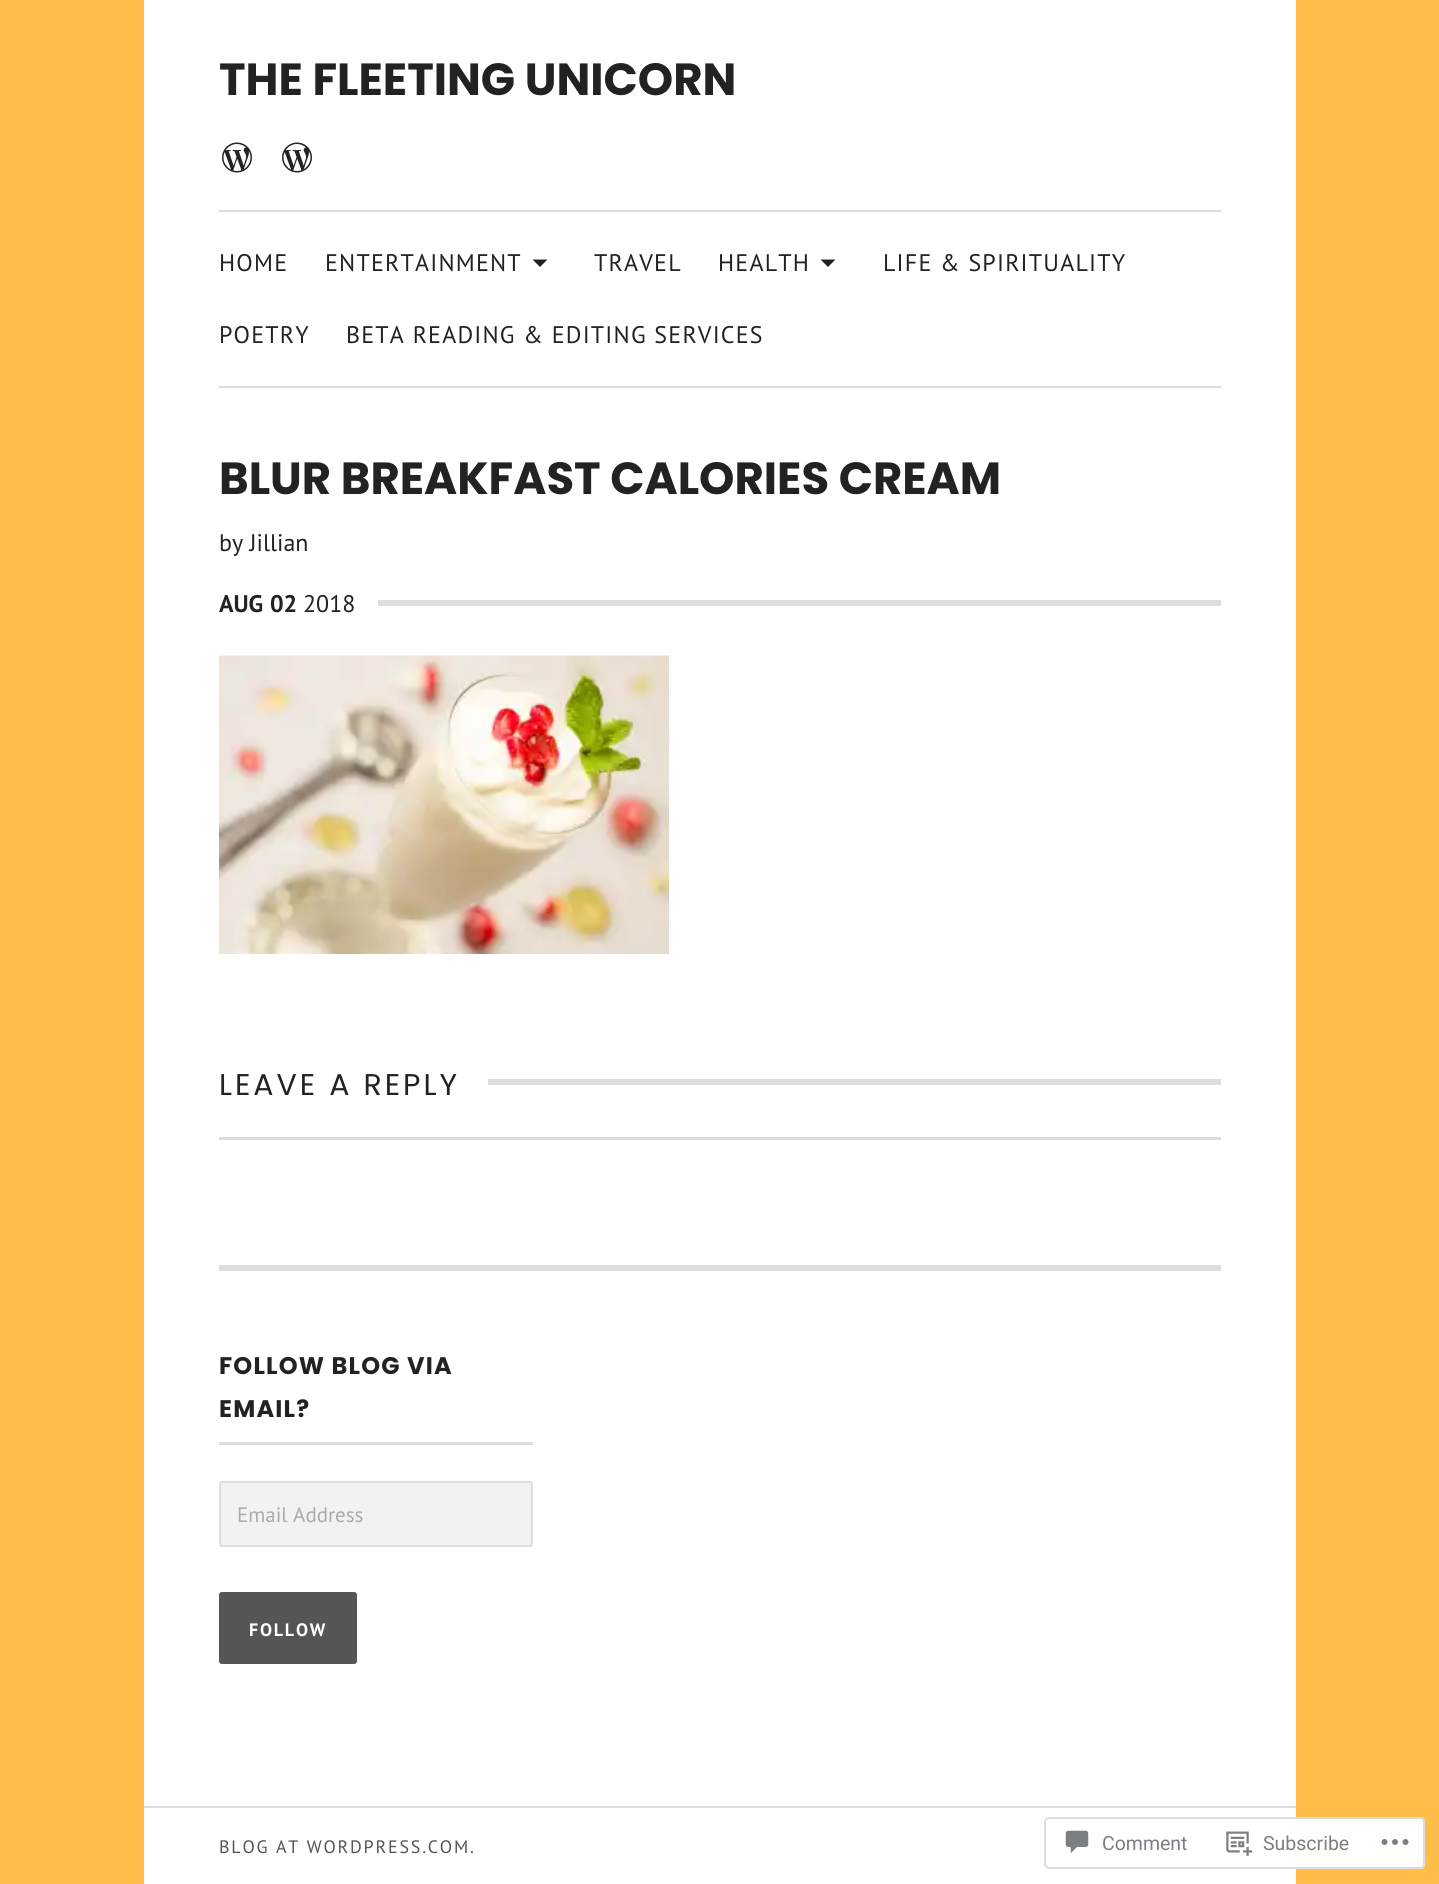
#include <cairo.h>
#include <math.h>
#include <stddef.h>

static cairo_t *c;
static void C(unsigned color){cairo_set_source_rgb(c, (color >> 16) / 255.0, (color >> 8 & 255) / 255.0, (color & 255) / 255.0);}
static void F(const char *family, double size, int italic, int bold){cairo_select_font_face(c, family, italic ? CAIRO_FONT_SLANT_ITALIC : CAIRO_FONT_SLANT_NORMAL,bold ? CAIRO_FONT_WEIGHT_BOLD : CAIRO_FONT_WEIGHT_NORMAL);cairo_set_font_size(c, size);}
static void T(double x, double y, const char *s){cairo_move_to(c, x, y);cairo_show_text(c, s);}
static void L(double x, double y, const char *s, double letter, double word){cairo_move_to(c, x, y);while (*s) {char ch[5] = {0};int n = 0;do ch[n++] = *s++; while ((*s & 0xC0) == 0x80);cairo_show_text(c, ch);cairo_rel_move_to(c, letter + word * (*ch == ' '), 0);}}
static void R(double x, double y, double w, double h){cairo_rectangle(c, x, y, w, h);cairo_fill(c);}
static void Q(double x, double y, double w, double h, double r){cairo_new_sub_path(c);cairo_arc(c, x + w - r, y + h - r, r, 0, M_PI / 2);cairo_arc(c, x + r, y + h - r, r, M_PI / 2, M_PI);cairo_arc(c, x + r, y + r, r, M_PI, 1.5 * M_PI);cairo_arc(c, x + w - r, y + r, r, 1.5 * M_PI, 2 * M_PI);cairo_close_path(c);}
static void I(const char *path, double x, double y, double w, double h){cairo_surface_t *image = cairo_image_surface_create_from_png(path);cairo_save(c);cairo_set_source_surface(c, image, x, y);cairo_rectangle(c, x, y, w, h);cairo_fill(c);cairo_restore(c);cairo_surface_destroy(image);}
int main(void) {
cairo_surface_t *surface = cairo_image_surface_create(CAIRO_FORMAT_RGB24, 1439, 1884);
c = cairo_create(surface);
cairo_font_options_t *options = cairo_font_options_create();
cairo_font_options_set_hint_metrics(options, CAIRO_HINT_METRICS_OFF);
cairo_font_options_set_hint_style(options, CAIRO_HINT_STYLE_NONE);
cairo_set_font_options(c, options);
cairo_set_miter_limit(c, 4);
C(0xffbd4a);
cairo_paint(c);
C(0xffffff);
R(144,0,1152,1884);
C(0xdedede);
R(219,386,1002,2);
F("Poppins",45,0,1);
C(0x222222);
T(219,95,"THE FLEETING UNICORN");
I("1.png",222,142,30,31);
I("1.png",282,142,30,31);
C(0xdedede);
R(219,210,1002,2);
F("PT Sans",24,0,0);
C(0x222222);
L(219,271,"HOME",1.2,0);
L(325,271,"ENTERTAINMENT",1.2,0);
cairo_new_path(c);
cairo_move_to(c,532.5,259.5);
cairo_line_to(c,540,267);
cairo_line_to(c,547.5,259.5);
cairo_close_path(c);
cairo_fill(c);
L(594,271,"TRAVEL",1.2,0);
L(718,271,"HEALTH",1.2,0);
cairo_new_path(c);
cairo_move_to(c,820.5,259.5);
cairo_line_to(c,828,267);
cairo_line_to(c,835.5,259.5);
cairo_close_path(c);
cairo_fill(c);
L(883,271,"LIFE & SPIRITUALITY",1.2,0);
L(219,343,"POETRY",1.2,0);
L(346,343,"BETA READING & EDITING SERVICES",1.2,0);
C(0xdedede);
R(378,600,843,6);
F("Poppins",45,0,1);
C(0x222222);
T(219,494,"BLUR BREAKFAST CALORIES CREAM");
F("PT Sans",24,0,0);
T(219,551,"by Jillian");
F("PT Sans",24,0,1);
T(219,612,"AUG");
T(270,612,"02");
F("PT Sans",24,0,0);
T(303,612,"2018");
I("2.png",219,655,450,299);
F("Poppins",30,0,0);
L(219,1095,"LEAVE A REPLY",3,0);
C(0xdedede);
R(488,1079,733,6);
C(0xdcdcde);
R(219,1137,1002,3);
C(0xdedede);
R(219,1265,1002,6);
R(219,1442,314,3);
F("Poppins",24,0,1);
C(0x222222);
L(219,1374,"FOLLOW BLOG VIA",1.2,0);
L(219,1417,"EMAIL?",1.2,0);
C(0xf2f2f2);
Q(220,1482,312,64,2);
cairo_fill_preserve(c);
C(0xdedede);
cairo_stroke(c);
F("PT Sans",21,0,0);
C(0xababab);
T(237,1522,"Email Address");
C(0x555555);
Q(220.5,1593.5,135,69,1.5);
cairo_fill_preserve(c);
cairo_set_line_width(c,3);
cairo_stroke(c);
F("PT Sans",18,0,1);
C(0xffffff);
L(249,1636,"FOLLOW",1.8,0);
C(0xdedede);
R(144,1806,1152,2);
F("PT Sans",18,0,0);
C(0x555555);
L(219,1853,"BLOG AT WORDPRESS.COM.",1.8,0);
cairo_set_source_rgba(c,1,1,1,0.98);
Q(1044,1817,381,52,5);
cairo_fill(c);
Q(1045,1818,379,50,4);
cairo_set_source_rgba(c,0.863,0.863,0.871,0.98);
cairo_set_line_width(c,2);
cairo_stroke(c);
I("3.png",1065,1830,24,24);
F("Roboto",19.5,0,0);
C(0x7b7f85);
T(1102,1850,"Comment");
I("4.png",1226,1831,27,25);
T(1263,1850,"Subscribe");
I("5.png",1381,1839,28,6);
cairo_surface_write_to_png(surface, "o.png");
cairo_font_options_destroy(options);
cairo_destroy(c);
cairo_surface_destroy(surface);
return 0;
}
